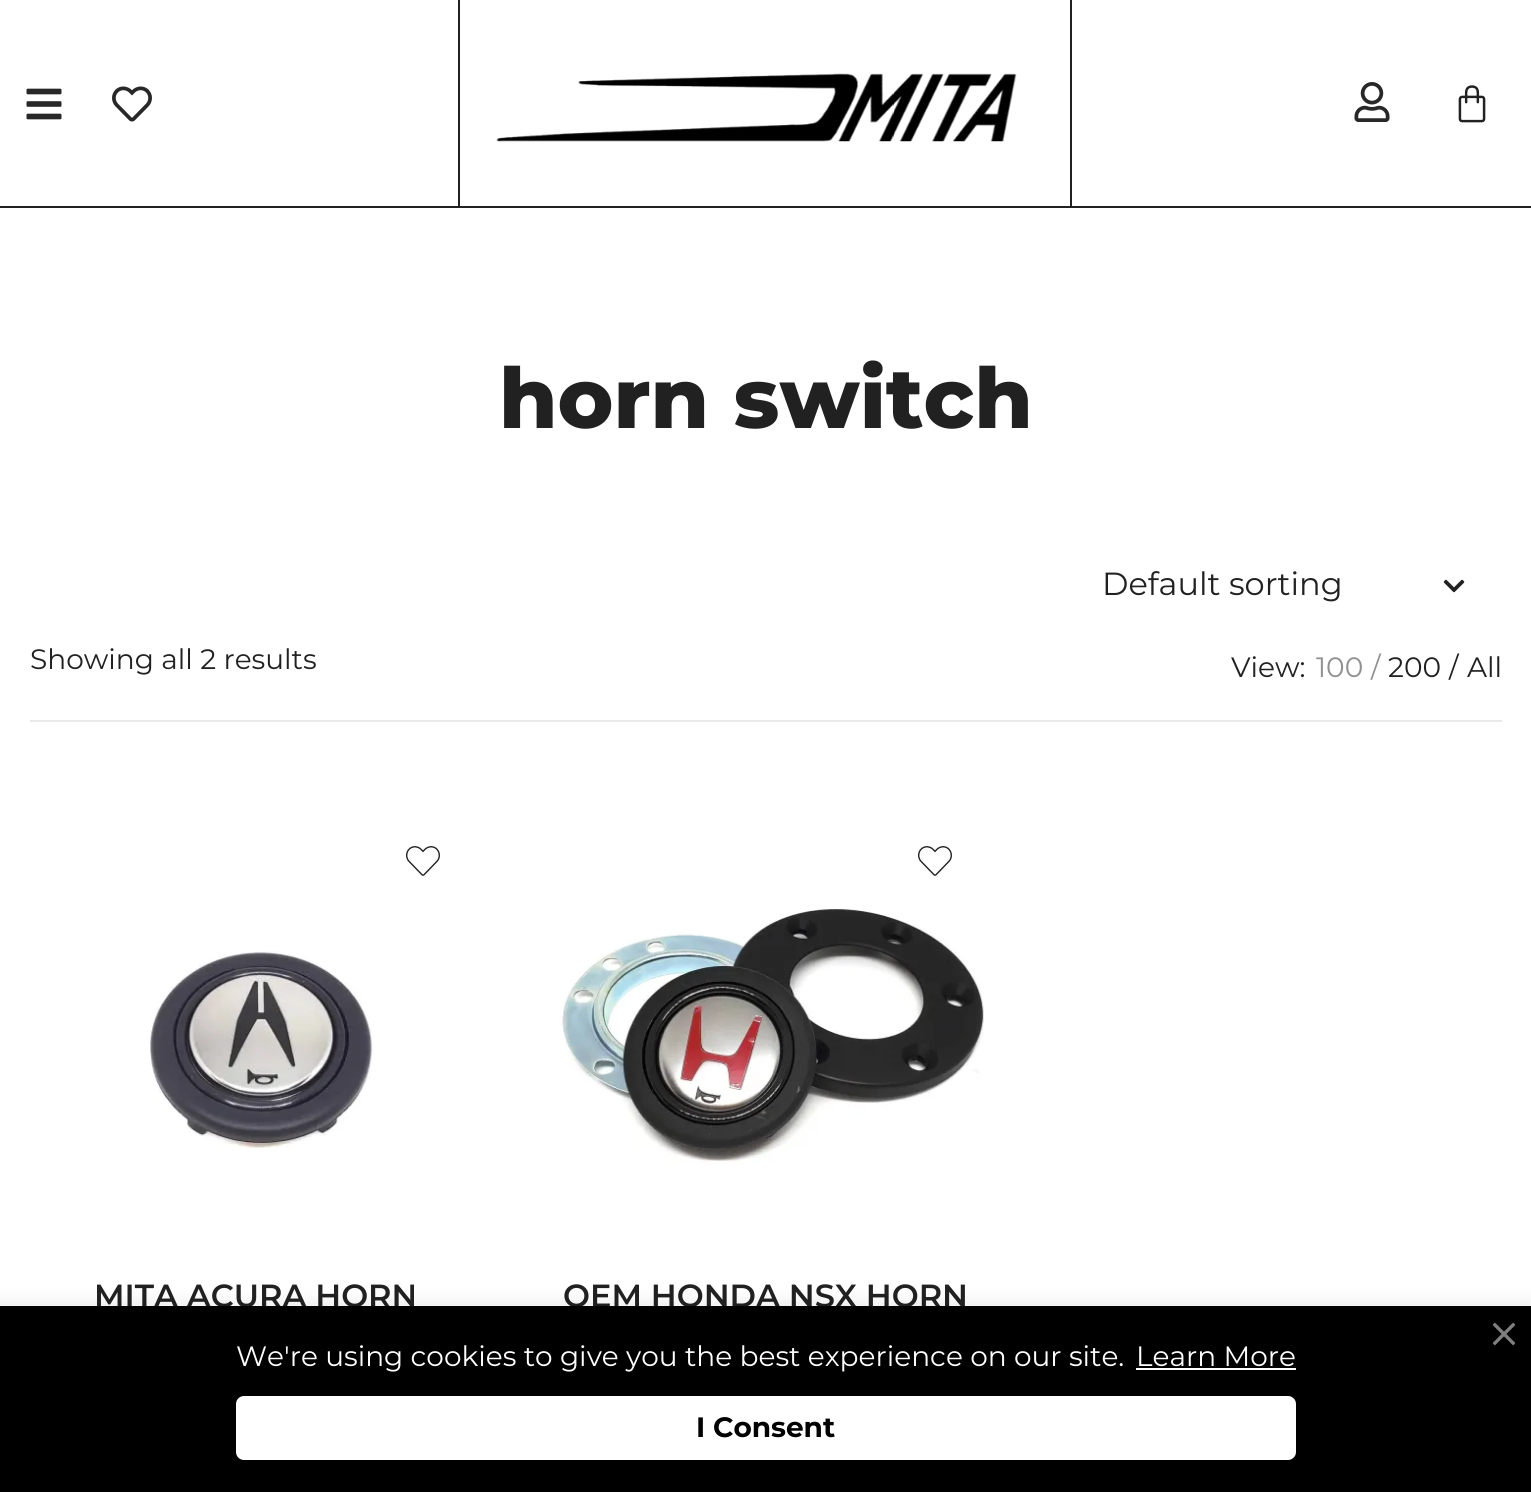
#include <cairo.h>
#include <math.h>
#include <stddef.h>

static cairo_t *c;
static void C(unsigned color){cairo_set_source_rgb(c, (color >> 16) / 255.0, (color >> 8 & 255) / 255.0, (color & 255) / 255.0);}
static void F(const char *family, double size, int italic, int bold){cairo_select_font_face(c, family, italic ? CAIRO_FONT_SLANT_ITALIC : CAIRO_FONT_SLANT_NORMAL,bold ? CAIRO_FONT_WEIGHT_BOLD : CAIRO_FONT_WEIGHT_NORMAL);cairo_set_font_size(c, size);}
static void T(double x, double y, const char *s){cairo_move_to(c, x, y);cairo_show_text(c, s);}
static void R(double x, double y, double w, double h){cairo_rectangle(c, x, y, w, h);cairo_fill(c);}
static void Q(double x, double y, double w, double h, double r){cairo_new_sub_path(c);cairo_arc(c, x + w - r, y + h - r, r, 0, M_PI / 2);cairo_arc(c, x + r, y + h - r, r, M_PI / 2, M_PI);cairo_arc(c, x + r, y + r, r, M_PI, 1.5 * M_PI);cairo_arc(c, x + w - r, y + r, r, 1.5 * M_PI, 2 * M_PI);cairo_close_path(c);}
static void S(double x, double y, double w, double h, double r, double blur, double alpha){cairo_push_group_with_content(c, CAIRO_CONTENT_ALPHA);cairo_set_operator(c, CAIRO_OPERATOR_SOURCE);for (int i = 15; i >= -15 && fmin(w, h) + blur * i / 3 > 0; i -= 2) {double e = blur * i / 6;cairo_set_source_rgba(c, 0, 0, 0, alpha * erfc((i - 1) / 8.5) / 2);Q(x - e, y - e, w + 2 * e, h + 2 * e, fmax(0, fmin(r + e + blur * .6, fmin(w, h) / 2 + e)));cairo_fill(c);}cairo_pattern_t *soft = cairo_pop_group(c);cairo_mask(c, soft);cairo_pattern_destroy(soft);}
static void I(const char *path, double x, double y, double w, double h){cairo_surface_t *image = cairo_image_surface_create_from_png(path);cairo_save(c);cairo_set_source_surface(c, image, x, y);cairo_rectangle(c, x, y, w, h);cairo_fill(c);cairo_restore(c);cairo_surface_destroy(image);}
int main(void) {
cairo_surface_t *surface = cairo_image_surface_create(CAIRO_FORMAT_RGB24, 1531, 1492);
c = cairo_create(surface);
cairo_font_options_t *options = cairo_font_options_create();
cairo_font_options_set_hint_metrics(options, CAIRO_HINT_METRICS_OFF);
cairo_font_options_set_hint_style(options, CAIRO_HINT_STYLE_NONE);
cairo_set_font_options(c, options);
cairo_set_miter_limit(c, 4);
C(0xffffff);
cairo_paint(c);
C(0x212121);
R(0,206,1531,2);
R(458,0,2,206);
I("1.png",26,88,36,32);
I("2.png",112,86,40,36);
R(1070,0,2,206);
I("3.png",496,73,521,69);
I("4.png",1354,82,36,40);
I("5.png",1458,85,28,38);
F("Montserrat ExtraBold",84,0,0);
T(499,428,"horn switch");
C(0xe9e9e9);
R(30,720,1472,2);
F("Montserrat",28,0,0);
C(0x212121);
T(30,669,"Showing all 2 results");
I("6.png",1443,579,22,14);
F("Montserrat",32,0,0);
T(1102,595,"Default sorting");
F("Montserrat",28,0,0);
T(1231,677,"View:");
C(0x909090);
T(1316,677,"100");
T(1371,677,"/");
C(0x212121);
T(1388,677,"200");
T(1449,677,"/");
T(1467,677,"All");
I("7.png",406,846,34,30);
I("8.png",150,951,224,198);
F("Montserrat SemiBold",32,0,0);
T(94,1307,"MITA ACURA HORN");
I("7.png",918,846,34,30);
I("9.png",560,908,424,256);
T(563,1307,"OEM HONDA NSX HORN");
C(0x000000);
S(-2,1304,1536,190,0,9,.1);
C(0x000000);
R(0,1306,1531,186);
I("10.png",1492,1322,24,24);
F("Montserrat",28,0,0);
C(0xfffdfd);
T(236,1366,"We're using cookies to give you the best experience on our site.");
T(1136,1366,"Learn More");
C(0xfefefe);
R(1136,1368,160,2);
C(0xffffff);
Q(236,1396,1060,64,8);
cairo_fill(c);
F("Montserrat",28,0,1);
C(0x000000);
T(696,1437,"I Consent");
cairo_surface_write_to_png(surface, "o.png");
cairo_font_options_destroy(options);
cairo_destroy(c);
cairo_surface_destroy(surface);
return 0;
}
